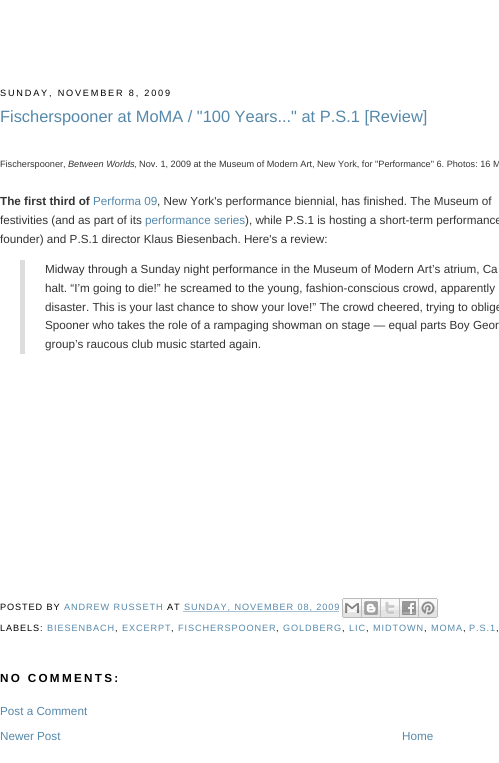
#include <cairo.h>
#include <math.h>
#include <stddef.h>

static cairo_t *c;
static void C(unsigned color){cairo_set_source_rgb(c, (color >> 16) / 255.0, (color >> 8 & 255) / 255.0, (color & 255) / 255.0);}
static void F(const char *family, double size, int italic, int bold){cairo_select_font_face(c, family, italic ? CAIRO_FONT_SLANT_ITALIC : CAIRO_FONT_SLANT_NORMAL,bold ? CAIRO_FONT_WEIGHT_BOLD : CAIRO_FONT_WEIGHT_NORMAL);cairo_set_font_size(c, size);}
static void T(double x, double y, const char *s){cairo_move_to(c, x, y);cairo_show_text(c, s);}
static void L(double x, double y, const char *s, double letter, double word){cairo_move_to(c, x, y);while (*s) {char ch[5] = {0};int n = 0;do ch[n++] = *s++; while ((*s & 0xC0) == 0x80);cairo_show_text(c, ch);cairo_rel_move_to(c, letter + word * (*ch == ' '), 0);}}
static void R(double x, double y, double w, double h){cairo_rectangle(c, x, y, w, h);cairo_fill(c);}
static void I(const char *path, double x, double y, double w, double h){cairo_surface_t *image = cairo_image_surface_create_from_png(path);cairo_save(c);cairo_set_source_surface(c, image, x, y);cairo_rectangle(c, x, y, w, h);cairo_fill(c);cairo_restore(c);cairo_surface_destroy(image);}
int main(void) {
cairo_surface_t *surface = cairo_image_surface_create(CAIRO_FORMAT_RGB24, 499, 763);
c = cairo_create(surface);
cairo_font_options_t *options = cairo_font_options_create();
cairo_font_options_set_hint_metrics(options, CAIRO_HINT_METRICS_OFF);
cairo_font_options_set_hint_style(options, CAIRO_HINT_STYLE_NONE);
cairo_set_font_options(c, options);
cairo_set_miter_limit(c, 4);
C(0xffffff);
cairo_paint(c);
F("Liberation Sans",9.15,0,0);
C(0x000000);
L(0,96,"SUNDAY, NOVEMBER 8, 2009",1.8,0);
F("Liberation Sans",16.4,0,0);
C(0x5588aa);
T(0,122,"Fischerspooner at MoMA / \"100 Years...\" at P.S.1 [Review]");
F("Liberation Sans",9.15,0,0);
C(0x333333);
T(0,167,"Fischerspooner,");
F("Liberation Sans",9.15,1,0);
T(68,167,"Between Worlds");
F("Liberation Sans",9.15,0,0);
T(134,167,", Nov. 1, 2009 at the Museum of Modern Art, New York, for \"Performance\" 6. Photos: 16 M");
F("Liberation Sans",11.7,0,1);
T(0,205,"The first third of");
F("Liberation Sans",11.7,0,0);
C(0x5588aa);
T(93,205,"Performa 09");
C(0x333333);
T(157,205,", New York's performance biennial, has finished. The Museum of");
T(0,224,"festivities (and as part of its");
C(0x5588aa);
T(145,224,"performance series");
C(0x333333);
T(245,224,"), while P.S.1 is hosting a short-term performance");
T(0,243,"founder) and P.S.1 director Klaus Biesenbach. Here's a review:");
C(0xdddddd);
R(20,260,5,94);
C(0x333333);
T(45,273,"Midway through a Sunday night performance in the Museum of Modern Art’s atrium, Ca");
T(45,292,"halt. “I’m going to die!” he screamed to the young, fashion-conscious crowd, apparently");
T(45,311,"disaster. This is your last chance to show your love!” The crowd cheered, trying to oblige");
T(45,329,"Spooner who takes the role of a rampaging showman on stage — equal parts Boy Geor");
T(45,348,"group’s raucous club music started again.");
F("Liberation Sans",9.15,0,0);
C(0x000000);
L(0,610,"POSTED BY",.9,0);
C(0x5588aa);
L(64,610,"ANDREW RUSSETH",.9,0);
C(0x000000);
L(167,610,"AT",.9,0);
cairo_new_path(c);
cairo_move_to(c,183.5,611.5);
cairo_line_to(c,339.5,611.5);
C(0x5588aa);
cairo_set_line_width(c,1);
cairo_set_dash(c,(double[]){1,1},2,0);
cairo_stroke(c);
L(184,610,"SUNDAY, NOVEMBER 08, 2009",.9,0);
I("1.png",342,598,20,20);
I("2.png",362,598,19,20);
I("3.png",381,598,19,20);
I("4.png",400,598,19,20);
I("5.png",419,598,19,20);
C(0x000000);
L(0,631,"LABELS:",.9,0);
C(0x5588aa);
L(47,631,"BIESENBACH",.9,0);
C(0x000000);
L(115,631,",",.9,0);
C(0x5588aa);
L(122,631,"EXCERPT",.9,0);
C(0x000000);
L(171,631,",",.9,0);
C(0x5588aa);
L(178,631,"FISCHERSPOONER",.9,0);
C(0x000000);
L(276,631,",",.9,0);
C(0x5588aa);
L(283,631,"GOLDBERG",.9,0);
C(0x000000);
L(342,631,",",.9,0);
C(0x5588aa);
L(349,631,"LIC",.9,0);
C(0x000000);
L(366,631,",",.9,0);
C(0x5588aa);
L(373,631,"MIDTOWN",.9,0);
C(0x000000);
L(424,631,",",.9,0);
C(0x5588aa);
L(431,631,"MOMA",.9,0);
C(0x000000);
L(463,631,",",.9,0);
C(0x5588aa);
L(469,631,"P.S.1",.9,0);
C(0x000000);
L(496,631,",",.9,0);
F("Liberation Sans",11.7,0,1);
L(0,682,"NO COMMENTS:",2.3,0);
F("Liberation Sans",11.7,0,0);
C(0x5588aa);
T(0,715,"Post a Comment");
T(0,740,"Newer Post");
T(402,740,"Home");
cairo_surface_write_to_png(surface, "o.png");
cairo_font_options_destroy(options);
cairo_destroy(c);
cairo_surface_destroy(surface);
return 0;
}
